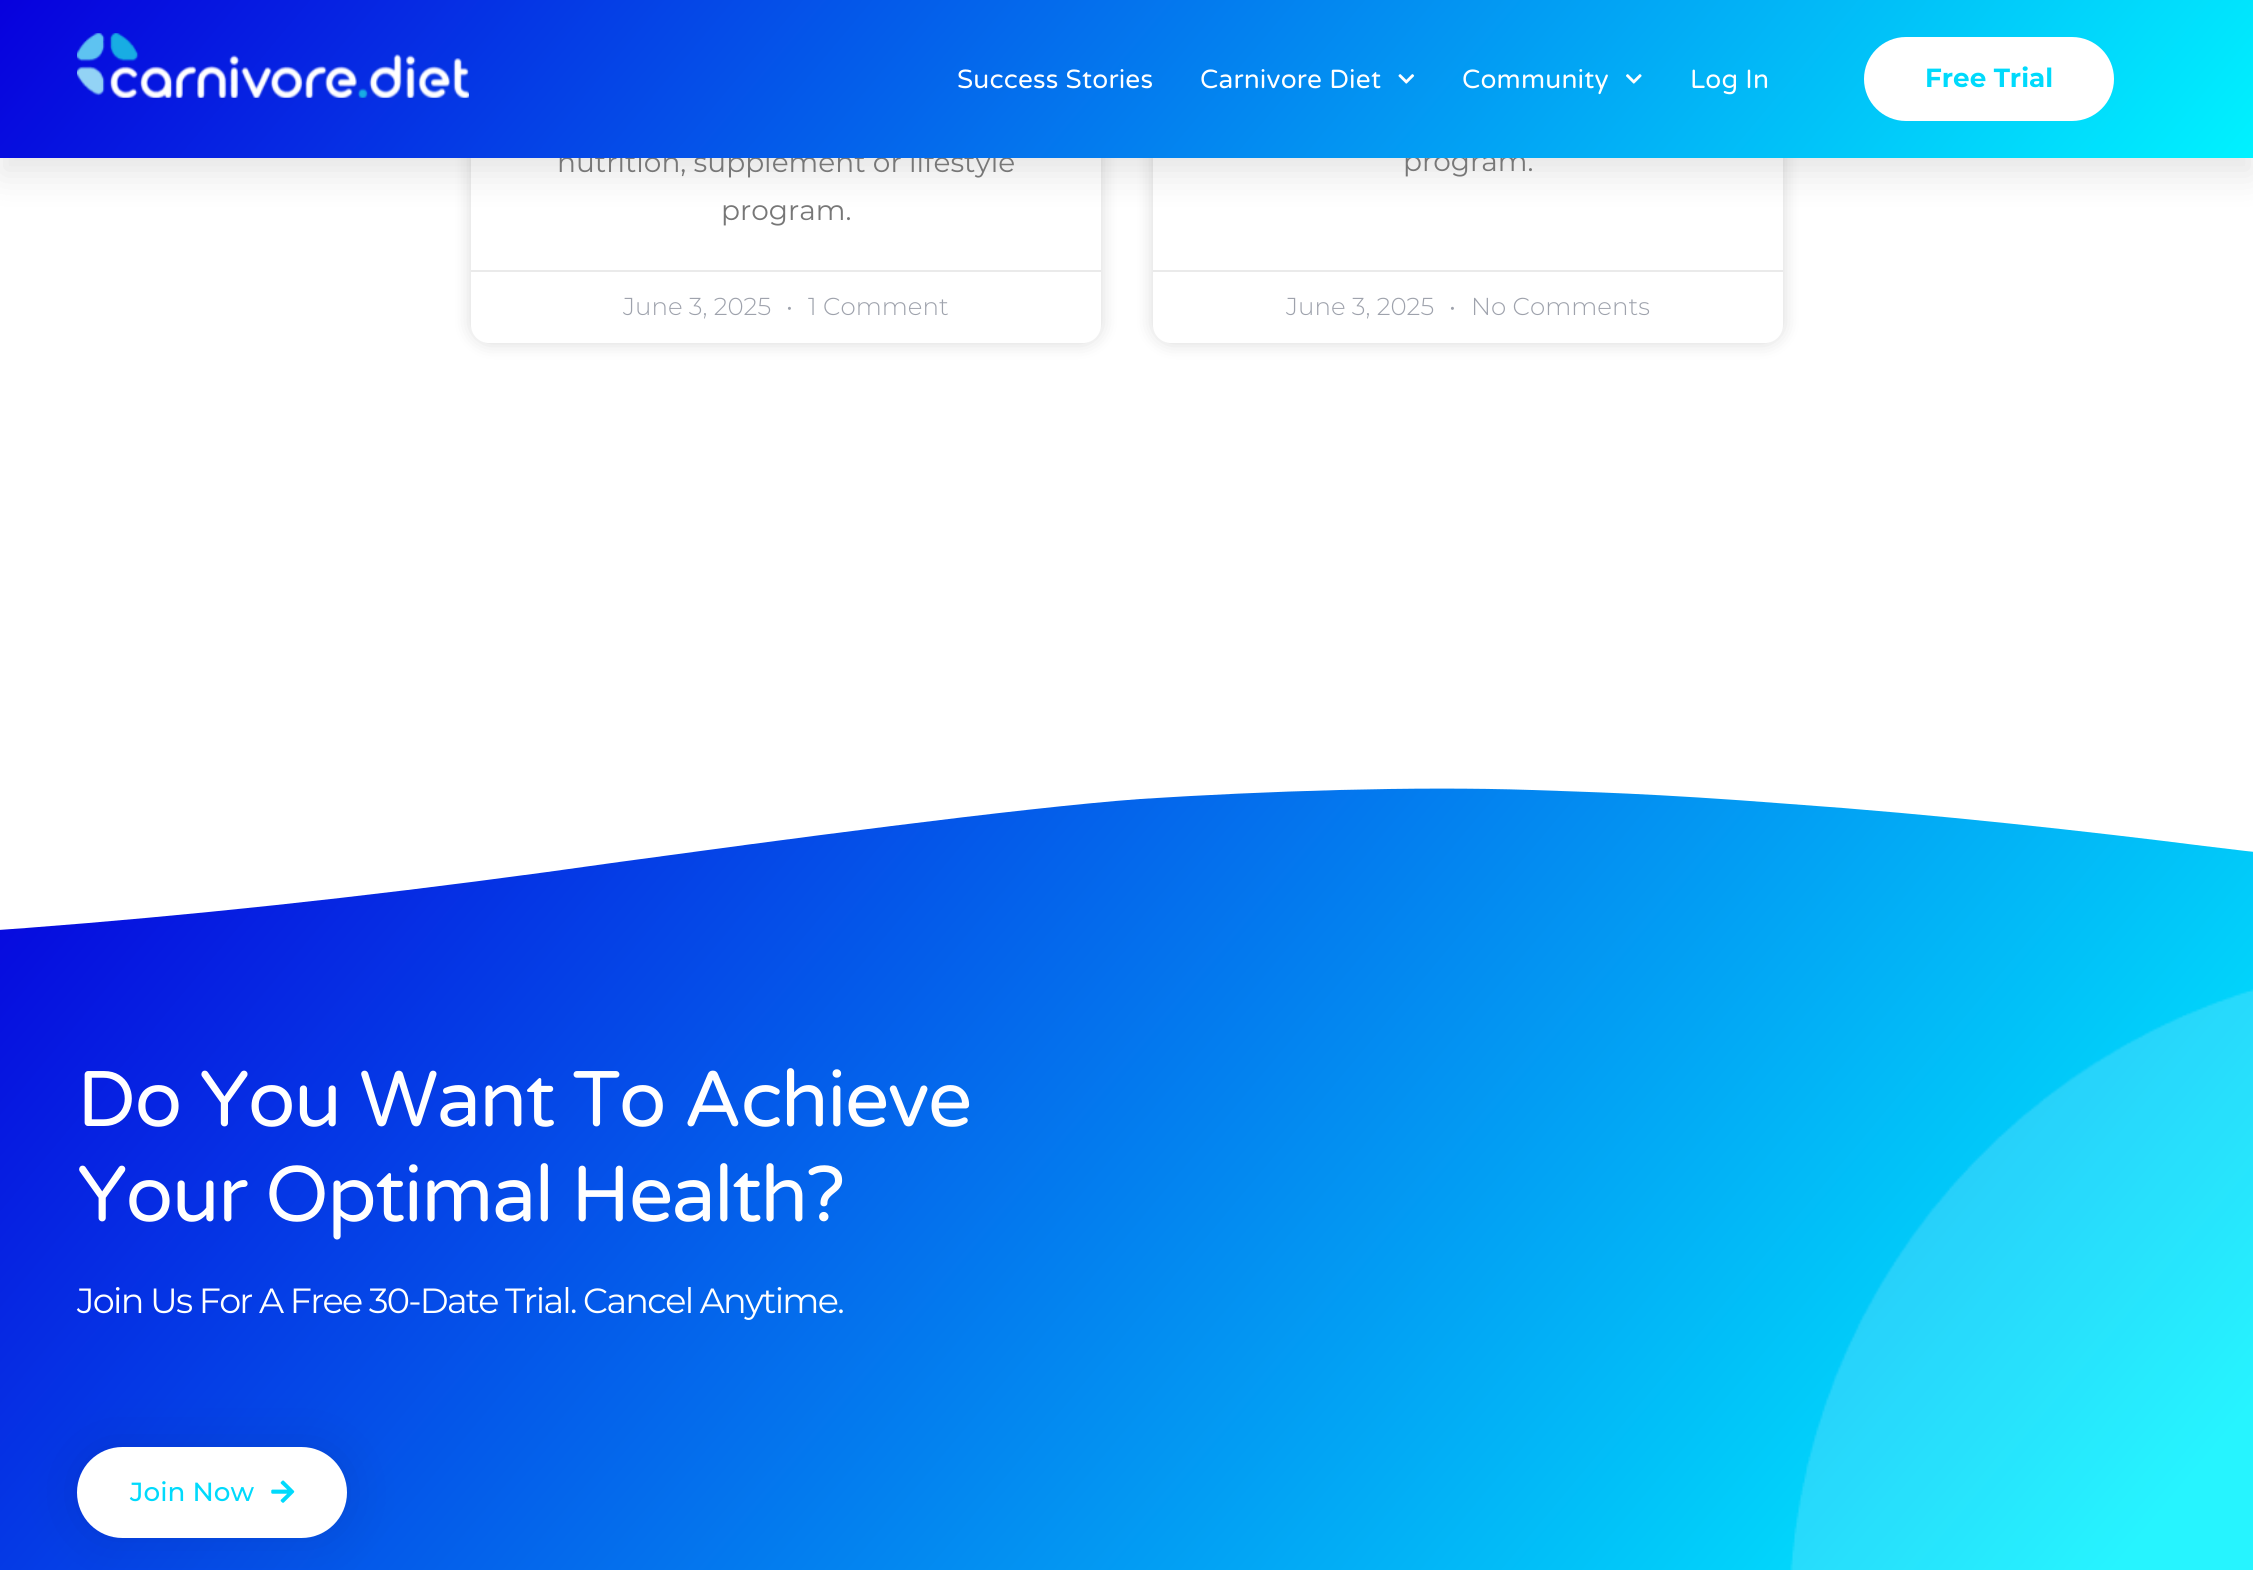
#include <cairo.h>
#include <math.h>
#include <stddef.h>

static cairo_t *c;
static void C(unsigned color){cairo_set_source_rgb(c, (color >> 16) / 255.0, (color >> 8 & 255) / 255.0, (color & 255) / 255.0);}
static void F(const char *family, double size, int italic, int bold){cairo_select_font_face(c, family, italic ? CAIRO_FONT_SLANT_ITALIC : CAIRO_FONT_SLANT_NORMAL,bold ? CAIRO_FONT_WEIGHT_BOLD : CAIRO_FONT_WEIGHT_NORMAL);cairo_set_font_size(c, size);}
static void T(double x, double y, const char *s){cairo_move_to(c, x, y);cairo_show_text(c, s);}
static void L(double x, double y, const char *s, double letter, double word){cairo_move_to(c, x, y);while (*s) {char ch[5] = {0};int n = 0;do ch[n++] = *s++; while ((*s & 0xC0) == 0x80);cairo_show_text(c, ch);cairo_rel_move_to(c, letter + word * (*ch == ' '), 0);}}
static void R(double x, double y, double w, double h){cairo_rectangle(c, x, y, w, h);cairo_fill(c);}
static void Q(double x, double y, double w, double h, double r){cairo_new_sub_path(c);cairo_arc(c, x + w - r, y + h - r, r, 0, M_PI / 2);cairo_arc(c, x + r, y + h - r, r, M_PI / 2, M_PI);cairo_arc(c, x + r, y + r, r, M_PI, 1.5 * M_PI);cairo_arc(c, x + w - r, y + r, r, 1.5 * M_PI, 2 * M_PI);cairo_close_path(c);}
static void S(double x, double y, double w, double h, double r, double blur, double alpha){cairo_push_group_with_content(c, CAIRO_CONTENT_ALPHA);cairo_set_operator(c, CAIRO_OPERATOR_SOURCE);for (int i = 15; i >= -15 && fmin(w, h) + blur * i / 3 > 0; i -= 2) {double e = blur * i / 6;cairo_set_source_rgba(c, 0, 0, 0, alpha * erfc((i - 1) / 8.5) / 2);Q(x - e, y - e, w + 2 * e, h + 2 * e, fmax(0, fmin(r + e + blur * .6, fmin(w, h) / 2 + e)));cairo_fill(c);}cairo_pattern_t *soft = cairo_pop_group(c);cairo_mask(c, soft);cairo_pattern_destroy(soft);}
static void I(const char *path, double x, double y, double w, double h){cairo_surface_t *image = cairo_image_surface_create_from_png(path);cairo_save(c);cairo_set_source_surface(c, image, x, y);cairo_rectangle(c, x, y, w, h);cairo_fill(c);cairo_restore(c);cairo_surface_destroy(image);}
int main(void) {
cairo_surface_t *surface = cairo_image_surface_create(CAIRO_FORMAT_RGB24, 2253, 1570);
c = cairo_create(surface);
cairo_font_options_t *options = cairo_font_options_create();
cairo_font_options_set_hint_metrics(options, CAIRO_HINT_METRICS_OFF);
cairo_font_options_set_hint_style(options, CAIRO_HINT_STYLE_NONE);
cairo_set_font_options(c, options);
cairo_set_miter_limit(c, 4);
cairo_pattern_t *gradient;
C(0xffffff);
cairo_paint(c);
C(0x000000);
S(471,-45,630,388,18,9,.15);
C(0xffffff);
Q(471,-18,630,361,18);
cairo_fill(c);
C(0x000000);
S(1153,-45,630,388,18,9,.15);
C(0xffffff);
Q(1153,-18,630,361,18);
cairo_fill(c);
C(0x000000);
S(0,18,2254,157,0,17.5,.1);
F("Montserrat",28,0,0);
C(0x777777);
T(557,172,"nutrition, supplement or lifestyle");
T(1403,171,"program.");
gradient = cairo_pattern_create_linear(427,-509,1827,666);
cairo_pattern_add_color_stop_rgba(gradient,0,0.027,0,0.867,1);
cairo_pattern_add_color_stop_rgba(gradient,1,0,0.949,1,1);
cairo_set_source(c,gradient);
cairo_pattern_destroy(gradient);
R(0,0,2253,158);
I("1.png",77,33,392,65);
F("Varela Round",26.25,0,0);
C(0xffffff);
L(957,88,"Success Stories",.2,0);
L(1200,88,"Carnivore Diet",.2,0);
I("2.png",1398,74,17,10);
L(1462,88,"Community",.2,0);
I("3.png",1626,74,16,10);
L(1690,88,"Log In",.2,0);
Q(1864,37,250,84,42);
cairo_fill(c);
F("Montserrat",26.25,0,1);
C(0x00dafc);
T(1925,87,"Free Trial");
F("Montserrat",28,0,0);
C(0x777777);
T(721,220,"program.");
C(0xeaeaea);
R(471,270,630,2);
F("Montserrat Light",24.5,0,0);
C(0x9ea2ac);
T(623,315,"June 3, 2025");
T(786,315,"•");
T(808,315,"1 Comment");
C(0xeaeaea);
R(1153,270,630,2);
C(0x9ea2ac);
T(1286,315,"June 3, 2025");
T(1449,315,"•");
T(1471,315,"No Comments");
gradient = cairo_pattern_create_linear(211,529,2043,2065);
cairo_pattern_add_color_stop_rgba(gradient,0,0.027,0,0.867,1);
cairo_pattern_add_color_stop_rgba(gradient,.89,0,0.949,1,1);
cairo_set_source(c,gradient);
cairo_pattern_destroy(gradient);
R(0,788,2253,782);
C(0xffffff);
cairo_new_path(c);
cairo_move_to(c,1532,790);
cairo_curve_to(c,1415,786,1265,791,1140,799);
cairo_curve_to(c,1018,808,773,841,619,862);
cairo_curve_to(c,226,918,-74,940,-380,949);
cairo_curve_to(c,-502,953,-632,955,-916,944);
cairo_curve_to(c,-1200,934,-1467,900,-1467,900);
cairo_line_to(c,-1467,779);
cairo_line_to(c,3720,779);
cairo_line_to(c,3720,832);
cairo_curve_to(c,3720,832,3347,889,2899,885);
cairo_curve_to(c,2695,884,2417,873,2204,846);
cairo_curve_to(c,2094,832,1933,814,1790,804);
cairo_curve_to(c,1649,793,1585,792,1532,790);
cairo_close_path(c);
cairo_fill(c);
F("Varela Round",78.75,0,0);
L(77,1126,"Do You Want To Achieve",-1.75,0);
L(77,1221,"Your Optimal Health?",-1.75,0);
F("Montserrat",35,0,0);
L(77,1313,"Join Us For A Free 30-Date Trial. Cancel Anytime.",-1.75,0);
C(0x000000);
S(77,1447,270,91,45.5,26,.1);
C(0xffffff);
Q(77,1447,270,91,45.5);
cairo_fill(c);
F("Montserrat Medium",26.25,0,0);
C(0x00dafc);
T(130,1501,"Join Now");
I("4.png",271,1480,24,23);
I("5.png",1790,989,463,581);
cairo_surface_write_to_png(surface, "o.png");
cairo_font_options_destroy(options);
cairo_destroy(c);
cairo_surface_destroy(surface);
return 0;
}
